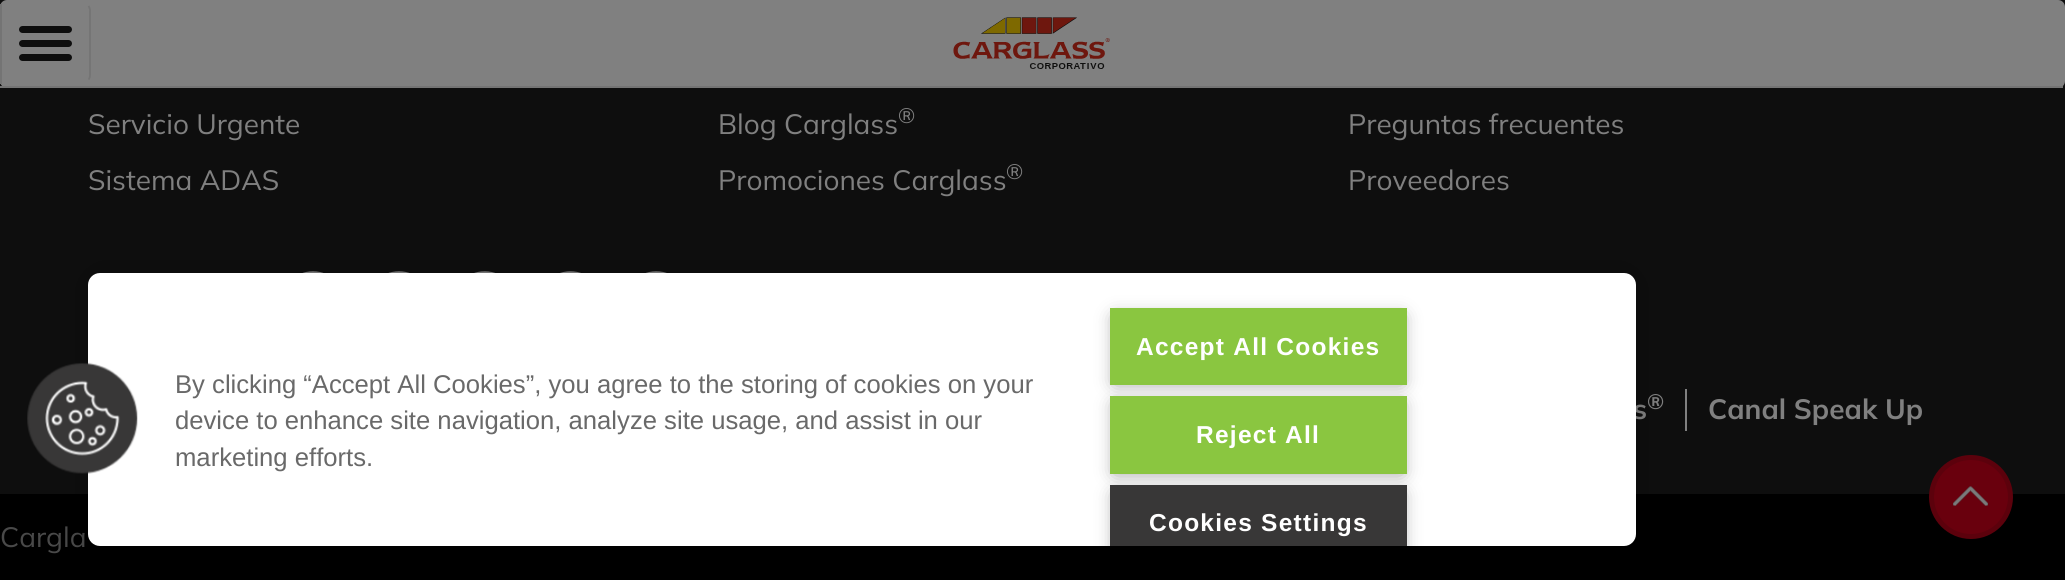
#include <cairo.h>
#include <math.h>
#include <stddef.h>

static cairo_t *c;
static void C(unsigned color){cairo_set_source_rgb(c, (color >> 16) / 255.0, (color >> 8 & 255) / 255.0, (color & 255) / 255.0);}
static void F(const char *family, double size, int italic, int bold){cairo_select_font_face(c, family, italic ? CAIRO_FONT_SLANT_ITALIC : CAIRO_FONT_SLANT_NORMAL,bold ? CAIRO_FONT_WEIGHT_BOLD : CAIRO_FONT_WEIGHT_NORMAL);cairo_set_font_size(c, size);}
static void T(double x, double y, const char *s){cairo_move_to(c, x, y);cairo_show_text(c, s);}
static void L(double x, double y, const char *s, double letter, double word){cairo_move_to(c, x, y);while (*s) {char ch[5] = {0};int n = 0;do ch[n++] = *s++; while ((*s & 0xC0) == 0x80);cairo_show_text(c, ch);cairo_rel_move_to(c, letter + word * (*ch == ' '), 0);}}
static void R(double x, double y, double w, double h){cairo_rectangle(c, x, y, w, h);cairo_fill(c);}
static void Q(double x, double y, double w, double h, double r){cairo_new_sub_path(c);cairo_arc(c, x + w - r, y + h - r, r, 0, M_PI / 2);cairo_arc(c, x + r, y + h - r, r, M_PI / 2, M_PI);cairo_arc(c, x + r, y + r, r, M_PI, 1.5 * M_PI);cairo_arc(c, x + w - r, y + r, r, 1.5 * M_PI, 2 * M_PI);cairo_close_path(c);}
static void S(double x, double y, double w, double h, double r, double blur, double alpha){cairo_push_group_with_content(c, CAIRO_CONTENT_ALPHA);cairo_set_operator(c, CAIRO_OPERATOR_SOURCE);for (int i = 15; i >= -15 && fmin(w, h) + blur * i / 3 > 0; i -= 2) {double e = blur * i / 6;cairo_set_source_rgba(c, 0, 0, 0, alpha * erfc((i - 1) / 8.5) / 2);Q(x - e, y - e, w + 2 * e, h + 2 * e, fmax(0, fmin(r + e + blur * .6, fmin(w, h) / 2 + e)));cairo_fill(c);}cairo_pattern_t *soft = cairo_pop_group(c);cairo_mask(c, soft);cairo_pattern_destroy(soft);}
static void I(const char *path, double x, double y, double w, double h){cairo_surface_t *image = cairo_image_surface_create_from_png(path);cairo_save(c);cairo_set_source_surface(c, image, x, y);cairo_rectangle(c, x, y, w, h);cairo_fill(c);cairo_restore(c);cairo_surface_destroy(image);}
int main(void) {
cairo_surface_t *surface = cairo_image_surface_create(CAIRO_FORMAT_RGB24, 2065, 580);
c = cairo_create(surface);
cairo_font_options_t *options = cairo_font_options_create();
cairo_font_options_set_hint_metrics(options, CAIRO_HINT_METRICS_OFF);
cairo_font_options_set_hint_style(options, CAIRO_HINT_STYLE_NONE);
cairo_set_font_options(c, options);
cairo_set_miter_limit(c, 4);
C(0x0e0e0e);
cairo_paint(c);
C(0x808080);
Q(0,0,2065,88,7);
cairo_fill(c);
C(0x747474);
R(0,4,2,80);
R(0,86,2063,2);
cairo_new_path(c);
cairo_move_to(c,88.5,6);
cairo_curve_to(c,89.5,7.5,90,9,90,10.5);
cairo_line_to(c,90,75);
cairo_curve_to(c,90,77,89.5,78.5,88.5,79.5);
cairo_set_line_width(c,1.8);
cairo_stroke(c);
C(0x0e0e0e);
Q(19,26,53,7,3.5);
cairo_fill(c);
Q(19,40,53,7,3.5);
cairo_fill(c);
Q(19,54,53,7,3.5);
cairo_fill(c);
I("1.png",953,17,157,52);
F("Mulish",28,0,0);
C(0x808080);
T(88,134,"Servicio Urgente");
T(88,190,"Sistema ADAS");
T(718,134,"Blog Carglass");
F("Mulish",21,0,0);
T(898,123,"®");
F("Mulish",28,0,0);
T(718,190,"Promociones Carglass");
F("Mulish",21,0,0);
T(1006,179,"®");
F("Mulish",28,0,0);
T(1348,134,"Preguntas frecuentes");
T(1348,190,"Proveedores");
I("2.png",302,271,22,2);
I("3.png",388,271,22,2);
I("4.png",474,271,22,2);
I("5.png",560,271,21,2);
I("6.png",645,271,22,2);
R(1685,389,2,42);
F("Mulish",21,0,1);
T(1647,409,"®");
F("Mulish",28,0,1);
T(1633,419,"s");
T(1708,419,"Canal Speak Up");
C(0x000000);
R(0,494,2065,86);
F("Mulish",28,0,0);
C(0x494949);
T(0,547,"Cargla");
C(0x000000);
S(88,273,1548,273,12,16,.2);
C(0xffffff);
Q(88,273,1548,273,12);
cairo_fill(c);
I("7.png",27,362,111,112);
F("Liberation Sans",25.65,0,0);
C(0x696969);
T(175,393,"By clicking “Accept All Cookies”, you agree to the storing of cookies on your");
T(175,429,"device to enhance site navigation, analyze site usage, and assist in our");
T(175,466,"marketing efforts.");
C(0x999999);
S(1115,317,287,66,0,9,1);
C(0x8ac640);
R(1110,308,297,77);
F("Liberation Sans",24.5,0,1);
C(0xffffff);
L(1136,355,"Accept All Cookies",1.25,0);
C(0x999999);
S(1115,404,287,69,0,9,1);
C(0x8ac640);
R(1110,396,297,78);
C(0xffffff);
L(1196,443,"Reject All",1.25,0);
cairo_save(c);
cairo_rectangle(c,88,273,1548,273);
cairo_clip(c);
C(0x999999);
S(1115,494,287,66,0,9,1);
cairo_restore(c);
C(0x383737);
R(1110,485,297,61);
C(0xffffff);
L(1149,531,"Cookies Settings",1.25,0);
C(0x69000d);
cairo_new_path(c);
cairo_arc(c,1971,497,39.5,0,2 * M_PI);
cairo_fill_preserve(c);
C(0x5c010c);
cairo_set_line_width(c,5);
cairo_stroke(c);
I("8.png",1953,486,35,20);
cairo_surface_write_to_png(surface, "o.png");
cairo_font_options_destroy(options);
cairo_destroy(c);
cairo_surface_destroy(surface);
return 0;
}
